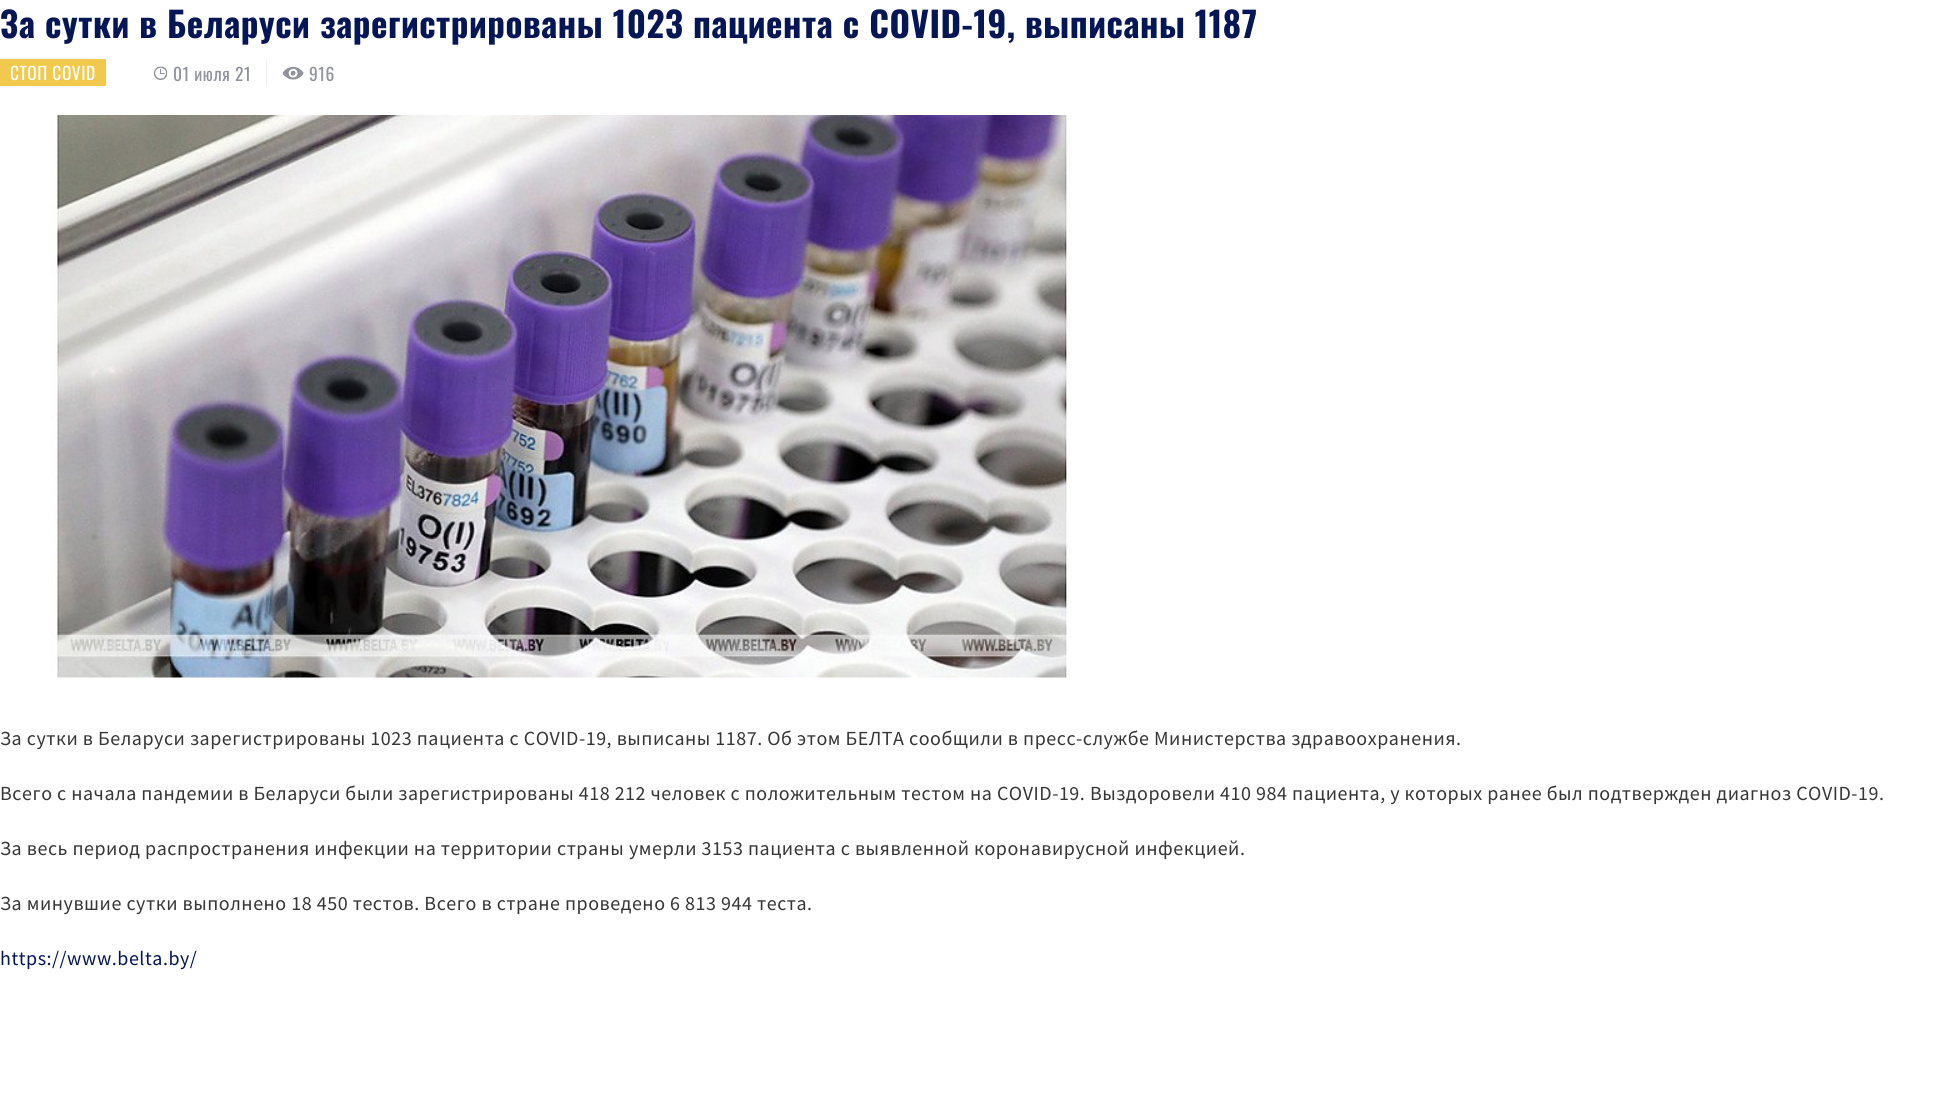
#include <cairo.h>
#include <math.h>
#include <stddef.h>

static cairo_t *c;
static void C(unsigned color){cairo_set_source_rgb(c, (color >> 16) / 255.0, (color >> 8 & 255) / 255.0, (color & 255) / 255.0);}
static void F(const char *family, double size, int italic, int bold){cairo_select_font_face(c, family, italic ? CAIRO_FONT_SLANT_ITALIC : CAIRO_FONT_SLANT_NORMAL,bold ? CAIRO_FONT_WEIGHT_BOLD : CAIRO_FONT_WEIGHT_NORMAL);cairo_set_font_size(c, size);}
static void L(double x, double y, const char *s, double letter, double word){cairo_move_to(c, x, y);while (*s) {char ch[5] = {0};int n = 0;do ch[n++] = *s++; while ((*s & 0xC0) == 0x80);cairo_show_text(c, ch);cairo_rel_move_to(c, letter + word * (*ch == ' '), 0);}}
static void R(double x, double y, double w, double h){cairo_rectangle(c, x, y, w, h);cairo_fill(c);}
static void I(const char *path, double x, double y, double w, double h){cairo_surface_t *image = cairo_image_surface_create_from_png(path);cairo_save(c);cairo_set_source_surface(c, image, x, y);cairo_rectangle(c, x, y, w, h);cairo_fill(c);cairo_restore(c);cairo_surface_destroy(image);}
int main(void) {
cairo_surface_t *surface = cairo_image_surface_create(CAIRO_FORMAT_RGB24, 1956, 1101);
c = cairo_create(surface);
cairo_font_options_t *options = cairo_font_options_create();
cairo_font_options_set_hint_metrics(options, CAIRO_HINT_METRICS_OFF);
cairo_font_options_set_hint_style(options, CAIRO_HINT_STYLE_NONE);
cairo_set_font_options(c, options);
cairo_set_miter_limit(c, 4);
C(0xffffff);
cairo_paint(c);
F("Oswald",35,0,1);
C(0x041655);
L(0,38,"За сутки в Беларуси зарегистрированы 1023 пациента с COVID-19, выписаны 1187",.53,0);
C(0xf2c94c);
R(0,59,106,27);
F("Oswald",17.5,0,0);
C(0xffffff);
L(10,80,"СТОП COVID",.53,0);
C(0xefefef);
R(266,60,1,26);
I("1.png",154,66,14,14);
C(0x91939c);
L(173,81,"01 июля 21",.53,0);
I("2.png",282,66,22,14);
L(309,81,"916",.53,0);
I("3.png",50,115,1021,563);
F("Source Sans Pro",20,0,0);
C(0x363636);
L(0,745,"За сутки в Беларуси зарегистрированы 1023 пациента с COVID-19, выписаны 1187. Об этом БЕЛТА сообщили в пресс-службе Министерства здравоохранения.",.53,0);
L(0,800,"Всего с начала пандемии в Беларуси были зарегистрированы 418 212 человек с положительным тестом на COVID-19. Выздоровели 410 984 пациента, у которых ранее был подтвержден диагноз COVID-19.",.53,0);
L(0,855,"За весь период распространения инфекции на территории страны умерли 3153 пациента с выявленной коронавирусной инфекцией.",.53,0);
L(0,910,"За минувшие сутки выполнено 18 450 тестов. Всего в стране проведено 6 813 944 теста.",.53,0);
C(0x041655);
L(0,965,"https://www.belta.by/",.53,0);
cairo_surface_write_to_png(surface, "o.png");
cairo_font_options_destroy(options);
cairo_destroy(c);
cairo_surface_destroy(surface);
return 0;
}
